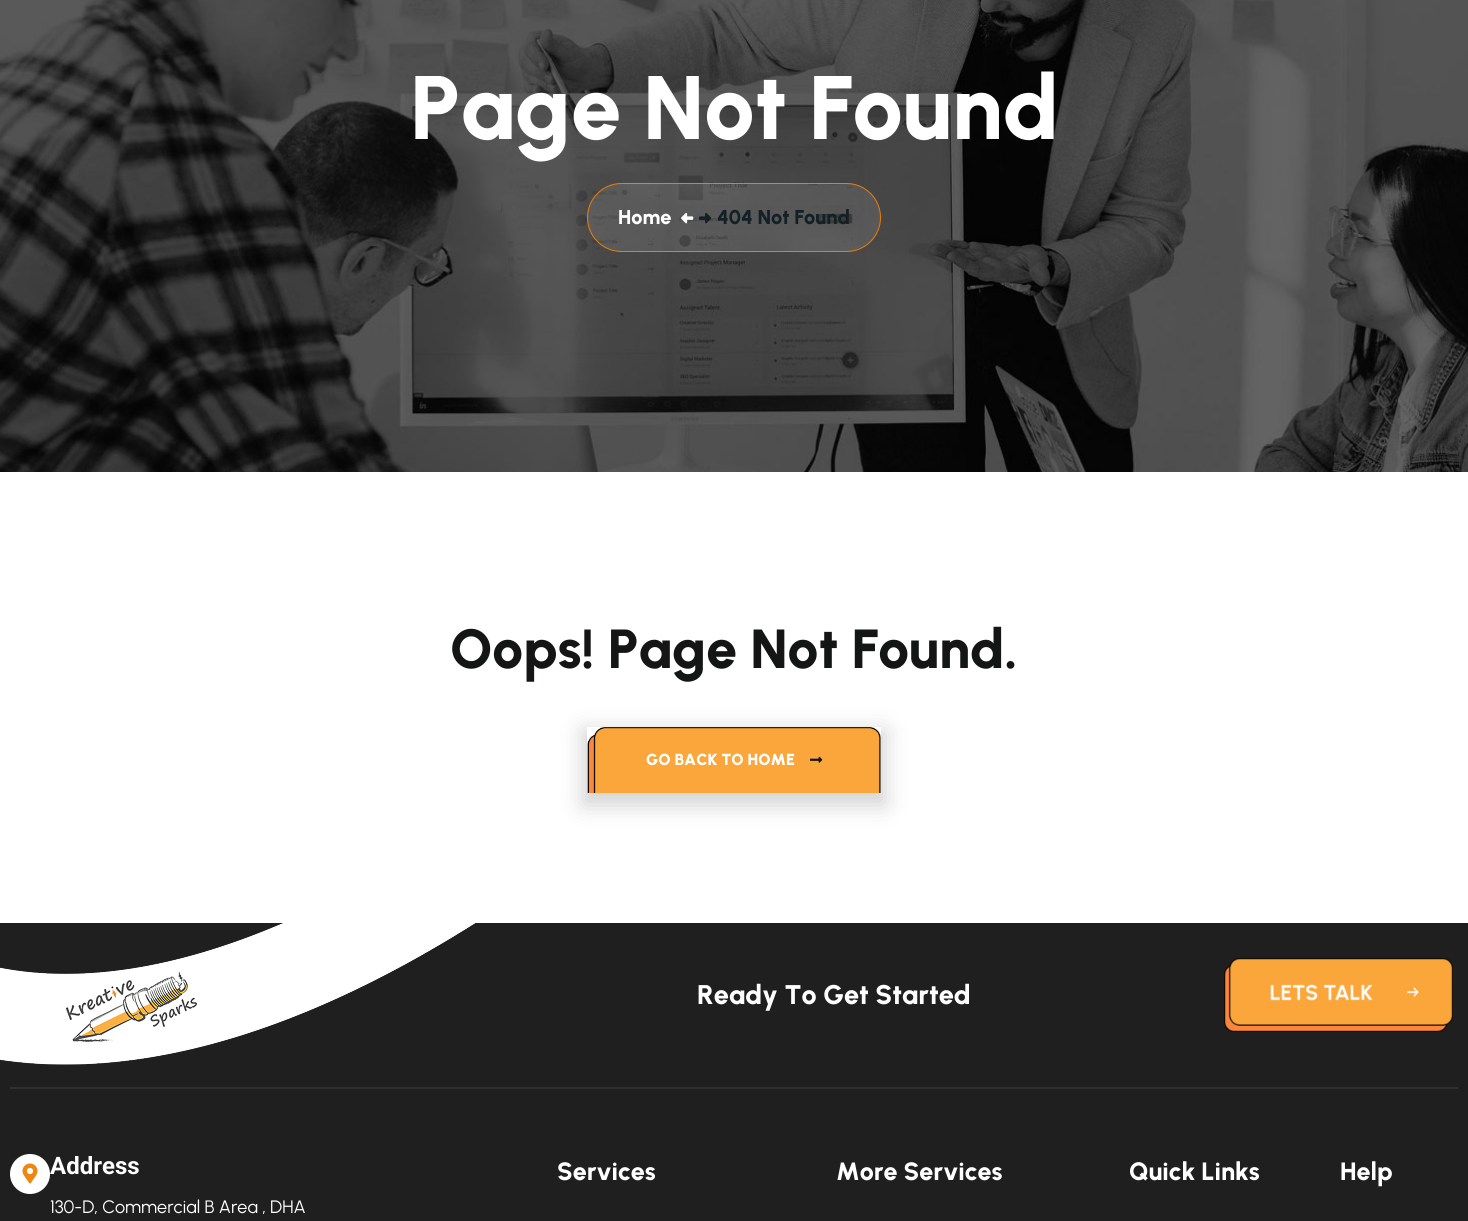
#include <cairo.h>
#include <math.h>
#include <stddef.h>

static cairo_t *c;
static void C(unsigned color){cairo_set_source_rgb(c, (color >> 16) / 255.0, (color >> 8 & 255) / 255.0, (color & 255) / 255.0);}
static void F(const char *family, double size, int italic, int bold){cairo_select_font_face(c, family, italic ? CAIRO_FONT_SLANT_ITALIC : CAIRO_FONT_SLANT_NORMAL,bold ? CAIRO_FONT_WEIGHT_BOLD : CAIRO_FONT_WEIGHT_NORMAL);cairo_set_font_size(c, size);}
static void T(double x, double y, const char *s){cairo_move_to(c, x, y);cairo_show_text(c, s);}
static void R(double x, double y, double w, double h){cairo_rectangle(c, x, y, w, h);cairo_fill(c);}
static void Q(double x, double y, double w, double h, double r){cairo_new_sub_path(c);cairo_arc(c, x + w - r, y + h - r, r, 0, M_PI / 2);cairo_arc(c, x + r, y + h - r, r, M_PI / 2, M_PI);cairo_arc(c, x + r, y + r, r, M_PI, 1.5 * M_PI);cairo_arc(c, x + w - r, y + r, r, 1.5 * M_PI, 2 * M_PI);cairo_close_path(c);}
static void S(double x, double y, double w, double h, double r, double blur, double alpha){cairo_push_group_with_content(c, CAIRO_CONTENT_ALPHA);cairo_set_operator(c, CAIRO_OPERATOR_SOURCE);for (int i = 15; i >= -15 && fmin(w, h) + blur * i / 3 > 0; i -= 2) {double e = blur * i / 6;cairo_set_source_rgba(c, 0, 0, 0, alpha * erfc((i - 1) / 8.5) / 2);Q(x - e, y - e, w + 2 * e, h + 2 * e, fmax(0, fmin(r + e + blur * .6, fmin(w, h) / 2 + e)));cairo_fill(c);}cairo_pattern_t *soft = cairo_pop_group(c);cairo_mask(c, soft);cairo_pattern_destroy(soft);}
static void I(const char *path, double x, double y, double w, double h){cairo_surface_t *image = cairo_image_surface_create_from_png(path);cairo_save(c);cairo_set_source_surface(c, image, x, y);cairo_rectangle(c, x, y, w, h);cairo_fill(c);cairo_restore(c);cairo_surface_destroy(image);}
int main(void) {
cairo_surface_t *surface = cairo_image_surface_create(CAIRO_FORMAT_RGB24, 1468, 1221);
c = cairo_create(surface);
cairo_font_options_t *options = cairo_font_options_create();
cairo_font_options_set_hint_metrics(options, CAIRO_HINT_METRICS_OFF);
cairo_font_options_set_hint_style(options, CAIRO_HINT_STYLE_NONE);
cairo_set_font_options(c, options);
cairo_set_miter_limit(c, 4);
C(0xffffff);
cairo_paint(c);
I("1.png",0,0,1468,472);
F("Urbanist ExtraBold",90,0,0);
C(0xffffff);
T(410,139,"Page Not Found");
cairo_set_source_rgba(c,1,1,1,0.1);
Q(587.5,183.5,293,68,34);
cairo_fill_preserve(c);
C(0xee7d05);
cairo_set_line_width(c,1);
cairo_stroke(c);
F("Urbanist ExtraBold",20,0,0);
C(0xffffff);
T(618,224,"Home");
I("2.png",681,212,13,12);
I("3.png",699,213,13,11);
C(0x132025);
T(717,224,"404 Not Found");
F("Urbanist ExtraBold",55,0,0);
C(0x141515);
T(450,668,"Oops! Page Not Found.");
cairo_save(c);
cairo_set_fill_rule(c,CAIRO_FILL_RULE_EVEN_ODD);
cairo_new_path(c);
cairo_move_to(c,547,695);
cairo_line_to(c,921,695);
cairo_line_to(c,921,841);
cairo_line_to(c,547,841);
cairo_close_path(c);
cairo_move_to(c,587,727);
cairo_line_to(c,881,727);
cairo_line_to(c,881,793);
cairo_line_to(c,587,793);
cairo_close_path(c);
cairo_clip(c);
C(0x1a1a1a);
S(583,731,302,74,0,11.5,.2);
cairo_restore(c);
I("4.png",587,727,294,66);
F("Urbanist Black",16,0,0);
C(0xffffff);
T(646,765,"GO BACK TO HOME");
I("5.png",810,756,13,7);
C(0x1f1f1f);
R(0,923,1468,298);
I("6.png",0,923,475,142);
F("Urbanist ExtraBold",27,0,0);
C(0xffffff);
T(697,1004,"Ready To Get Started");
I("7.png",1224,958,229,74);
C(0x313030);
R(10,1087,1448,2);
C(0xffffff);
cairo_arc(c,30,1174,20,0,2 * M_PI);
cairo_fill(c);
I("8.png",22,1163,16,21);
F("Roboto",24,0,1);
T(50,1174,"Address");
F("Urbanist",18,0,0);
T(50,1213,"130-D, Commercial B Area , DHA");
F("Urbanist ExtraBold",25,0,0);
T(557,1180,"Services");
T(836,1180,"More Services");
T(1129,1180,"Quick Links");
T(1340,1180,"Help");
cairo_surface_write_to_png(surface, "o.png");
cairo_font_options_destroy(options);
cairo_destroy(c);
cairo_surface_destroy(surface);
return 0;
}
